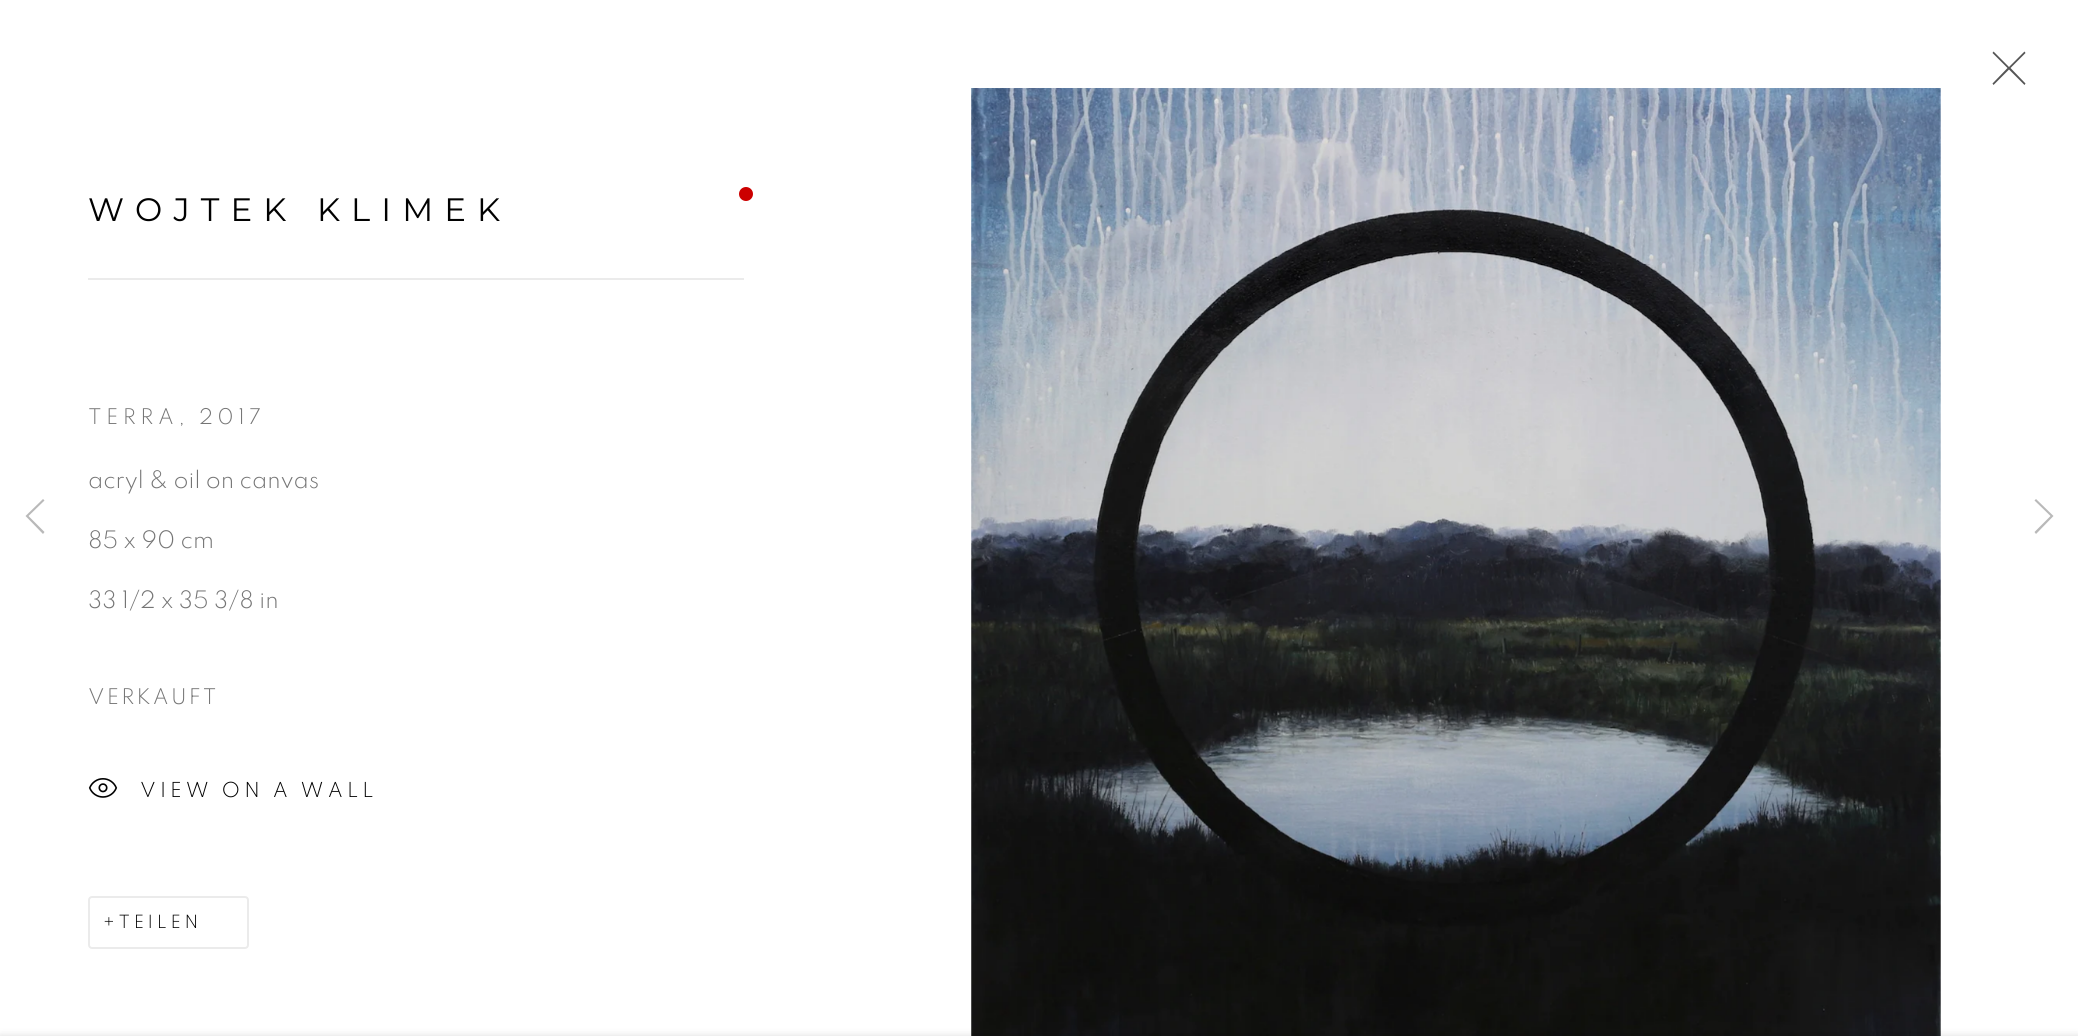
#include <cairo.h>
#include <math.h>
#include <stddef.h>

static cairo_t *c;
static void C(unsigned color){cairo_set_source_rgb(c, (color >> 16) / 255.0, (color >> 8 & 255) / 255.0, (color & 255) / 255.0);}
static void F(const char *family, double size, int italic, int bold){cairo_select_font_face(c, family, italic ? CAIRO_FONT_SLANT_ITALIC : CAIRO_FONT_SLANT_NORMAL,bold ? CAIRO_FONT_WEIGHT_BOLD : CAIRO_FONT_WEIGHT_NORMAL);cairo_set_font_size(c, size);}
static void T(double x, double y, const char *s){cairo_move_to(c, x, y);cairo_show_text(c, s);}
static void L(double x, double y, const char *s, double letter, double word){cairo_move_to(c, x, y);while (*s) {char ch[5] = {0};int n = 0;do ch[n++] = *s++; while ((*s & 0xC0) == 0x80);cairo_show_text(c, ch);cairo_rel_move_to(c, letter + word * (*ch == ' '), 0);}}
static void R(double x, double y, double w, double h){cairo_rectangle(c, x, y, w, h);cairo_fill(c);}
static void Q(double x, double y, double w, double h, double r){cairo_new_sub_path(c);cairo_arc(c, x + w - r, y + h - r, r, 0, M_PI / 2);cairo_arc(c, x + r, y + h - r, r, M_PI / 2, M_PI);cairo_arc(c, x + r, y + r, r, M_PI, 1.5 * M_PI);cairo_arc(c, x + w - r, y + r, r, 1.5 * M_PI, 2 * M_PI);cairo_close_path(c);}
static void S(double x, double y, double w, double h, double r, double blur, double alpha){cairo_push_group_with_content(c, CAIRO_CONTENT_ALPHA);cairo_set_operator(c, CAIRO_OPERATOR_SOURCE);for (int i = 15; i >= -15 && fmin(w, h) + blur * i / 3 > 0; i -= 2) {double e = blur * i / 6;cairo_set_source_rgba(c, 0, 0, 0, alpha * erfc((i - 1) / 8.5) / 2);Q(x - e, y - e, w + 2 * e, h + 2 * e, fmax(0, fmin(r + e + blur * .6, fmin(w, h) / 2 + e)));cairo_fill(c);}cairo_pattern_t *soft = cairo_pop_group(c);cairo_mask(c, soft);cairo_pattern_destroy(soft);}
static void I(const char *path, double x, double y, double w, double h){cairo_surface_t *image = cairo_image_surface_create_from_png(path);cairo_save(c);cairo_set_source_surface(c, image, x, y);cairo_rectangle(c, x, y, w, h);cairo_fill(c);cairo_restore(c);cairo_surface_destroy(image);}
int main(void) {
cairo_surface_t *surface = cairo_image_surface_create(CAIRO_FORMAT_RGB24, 2078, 1036);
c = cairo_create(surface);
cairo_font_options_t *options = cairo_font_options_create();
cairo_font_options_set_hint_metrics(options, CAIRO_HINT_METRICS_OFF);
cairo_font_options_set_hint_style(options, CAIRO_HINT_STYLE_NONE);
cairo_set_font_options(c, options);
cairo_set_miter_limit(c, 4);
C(0xffffff);
cairo_paint(c);
C(0x555555);
cairo_new_path(c);
cairo_move_to(c,2025.5,53);
cairo_line_to(c,2024.5,51.5);
cairo_line_to(c,2009,67);
cairo_line_to(c,1993.5,51.5);
cairo_line_to(c,1992.5,53);
cairo_line_to(c,2007.5,68);
cairo_line_to(c,1992.5,83.5);
cairo_line_to(c,1993.5,85);
cairo_line_to(c,2009,69.5);
cairo_line_to(c,2024.5,85);
cairo_line_to(c,2025.5,83.5);
cairo_line_to(c,2010.5,68);
cairo_close_path(c);
cairo_fill(c);
C(0xcc0000);
cairo_arc(c,746,194,7,0,2 * M_PI);
cairo_fill(c);
C(0xebebeb);
R(88,278,656,2);
F("Montserrat",32.4,0,0);
C(0x010101);
L(88,221,"WOJTEK KLIMEK",11.1,0);
F("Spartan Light",22.25,0,0);
C(0x757575);
L(88,424,"TERRA, 2017",4.5,0);
F("Spartan Light",24.75,0,0);
T(88,488,"acryl & oil on canvas");
T(88,548,"85 x 90 cm");
T(88,608,"33 1/2 x 35 3/8 in");
F("Spartan Light",22.25,0,0);
L(88,704,"VERKAUFT",2.25,0);
I("1.png",88,778,30,20);
F("Spartan Light",21.25,0,0);
C(0x010101);
L(140,797,"VIEW ON A WALL",4.1,0);
Q(89,897,159,51,3);
C(0xebebeb);
cairo_stroke(c);
F("Spartan Light",18.75,0,0);
C(0x010101);
L(103,928,"+TEILEN",3.75,0);
I("2.png",971,88,970,948);
C(0xb9b9b9);
cairo_new_path(c);
cairo_move_to(c,27,517.5);
cairo_line_to(c,43,534);
cairo_line_to(c,44.5,532);
cairo_line_to(c,28.5,516);
cairo_line_to(c,44.5,500.5);
cairo_line_to(c,43,499);
cairo_line_to(c,25.5,516);
cairo_close_path(c);
cairo_fill(c);
cairo_new_path(c);
cairo_move_to(c,2053.5,516);
cairo_line_to(c,2036,499);
cairo_line_to(c,2034.5,500.5);
cairo_line_to(c,2050.5,516);
cairo_line_to(c,2034.5,532);
cairo_line_to(c,2036,534);
cairo_close_path(c);
cairo_fill(c);
C(0x000000);
S(0,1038,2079,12,0,4.5,.23);
cairo_surface_write_to_png(surface, "o.png");
cairo_font_options_destroy(options);
cairo_destroy(c);
cairo_surface_destroy(surface);
return 0;
}
